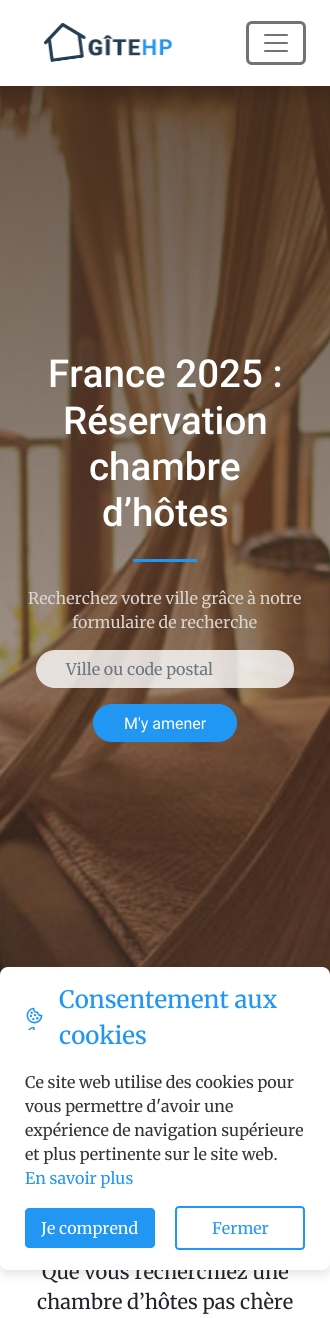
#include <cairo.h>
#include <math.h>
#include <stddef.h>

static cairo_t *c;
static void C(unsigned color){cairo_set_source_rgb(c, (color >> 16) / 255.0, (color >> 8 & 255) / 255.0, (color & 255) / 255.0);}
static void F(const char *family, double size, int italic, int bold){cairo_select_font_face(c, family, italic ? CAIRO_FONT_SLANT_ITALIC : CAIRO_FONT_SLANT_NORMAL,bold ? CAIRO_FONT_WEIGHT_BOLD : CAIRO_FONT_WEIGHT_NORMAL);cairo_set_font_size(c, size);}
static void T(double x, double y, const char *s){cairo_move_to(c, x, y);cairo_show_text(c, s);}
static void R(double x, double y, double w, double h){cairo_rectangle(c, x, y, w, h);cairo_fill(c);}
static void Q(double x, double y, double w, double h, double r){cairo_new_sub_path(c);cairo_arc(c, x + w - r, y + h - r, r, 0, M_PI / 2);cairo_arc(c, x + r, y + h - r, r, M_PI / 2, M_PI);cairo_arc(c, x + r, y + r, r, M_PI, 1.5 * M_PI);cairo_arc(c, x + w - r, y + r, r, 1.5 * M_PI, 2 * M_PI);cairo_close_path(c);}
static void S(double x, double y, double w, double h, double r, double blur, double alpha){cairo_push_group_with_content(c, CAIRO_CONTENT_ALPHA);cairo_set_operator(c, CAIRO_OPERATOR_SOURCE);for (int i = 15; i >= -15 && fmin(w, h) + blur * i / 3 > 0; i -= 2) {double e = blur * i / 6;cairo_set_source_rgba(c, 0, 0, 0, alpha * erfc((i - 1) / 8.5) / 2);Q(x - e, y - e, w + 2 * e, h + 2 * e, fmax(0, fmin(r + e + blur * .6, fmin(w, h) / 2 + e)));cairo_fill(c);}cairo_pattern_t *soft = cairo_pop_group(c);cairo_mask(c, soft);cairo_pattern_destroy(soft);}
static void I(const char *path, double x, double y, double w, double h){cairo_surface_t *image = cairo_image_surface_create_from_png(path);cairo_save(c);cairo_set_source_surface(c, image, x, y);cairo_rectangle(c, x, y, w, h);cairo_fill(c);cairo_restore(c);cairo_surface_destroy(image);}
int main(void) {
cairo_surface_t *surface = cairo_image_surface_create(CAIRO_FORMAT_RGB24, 330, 1318);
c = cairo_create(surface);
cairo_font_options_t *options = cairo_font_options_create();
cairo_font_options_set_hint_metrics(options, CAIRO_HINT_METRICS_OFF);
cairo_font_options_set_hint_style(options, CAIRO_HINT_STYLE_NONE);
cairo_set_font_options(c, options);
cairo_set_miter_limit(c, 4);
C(0xffffff);
cairo_paint(c);
I("3.png",0,86,330,889);
C(0x000000);
S(0,8,330,86,0,8,.15);
C(0xffffff);
R(0,0,330,86);
I("1.png",43,23,130,39);
Q(247.5,22.5,57,41,4.5);
C(0x737373);
cairo_set_line_width(c,3);
cairo_stroke(c);
I("2.png",264,34,24,18);
F("Roboto Medium",38.5,0,0);
C(0xffffff);
T(48,387,"France 2025 :");
T(63,434,"Réservation");
T(89,480,"chambre");
T(102,526,"d’hôtes");
C(0x2196f3);
R(133,559,64,3);
F("Merriweather",16,0,0);
C(0xdcd5cf);
T(28,604,"Recherchez votre ville grâce à notre");
T(72,628,"formulaire de recherche");
cairo_set_source_rgba(c,1,1,1,0.8);
Q(36,650,258,38,19);
cairo_fill(c);
C(0x6c757d);
T(66,675,"Ville ou code postal");
C(0x2196f3);
Q(93.5,704.5,143,37,18.5);
cairo_fill_preserve(c);
cairo_set_line_width(c,1);
cairo_stroke(c);
F("Roboto",16,0,0);
C(0xffffff);
T(124,729,"M'y amener");
C(0x000000);
S(0,972,330,303,8,5,.1);
F("Merriweather",20,0,0);
C(0x212529);
T(42,1279,"Que vous recherchiez une");
C(0xffffff);
Q(0,967,330,303,8);
cairo_fill(c);
I("4.png",26,1007,17,23);
F("Merriweather Medium",24,0,0);
C(0x2196f3);
T(59,1008,"Consentement aux");
T(59,1044,"cookies");
F("Merriweather",16,0,0);
C(0x333333);
T(25,1088,"Ce site web utilise des cookies pour");
T(25,1112,"vous permettre d'avoir une");
T(25,1136,"expérience de navigation supérieure");
T(25,1160,"et plus pertinente sur le site web.");
C(0x2196f3);
T(25,1184,"En savoir plus");
Q(25,1208,130,40,4);
cairo_fill(c);
C(0xffffff);
T(41,1234,"Je comprend");
Q(176,1207,128,42,3);
C(0x2196f3);
cairo_set_line_width(c,2);
cairo_stroke(c);
T(212,1234,"Fermer");
F("Merriweather",20,0,0);
C(0x212529);
T(37,1309,"chambre d’hôtes pas chère");
cairo_surface_write_to_png(surface, "o.png");
cairo_font_options_destroy(options);
cairo_destroy(c);
cairo_surface_destroy(surface);
return 0;
}
